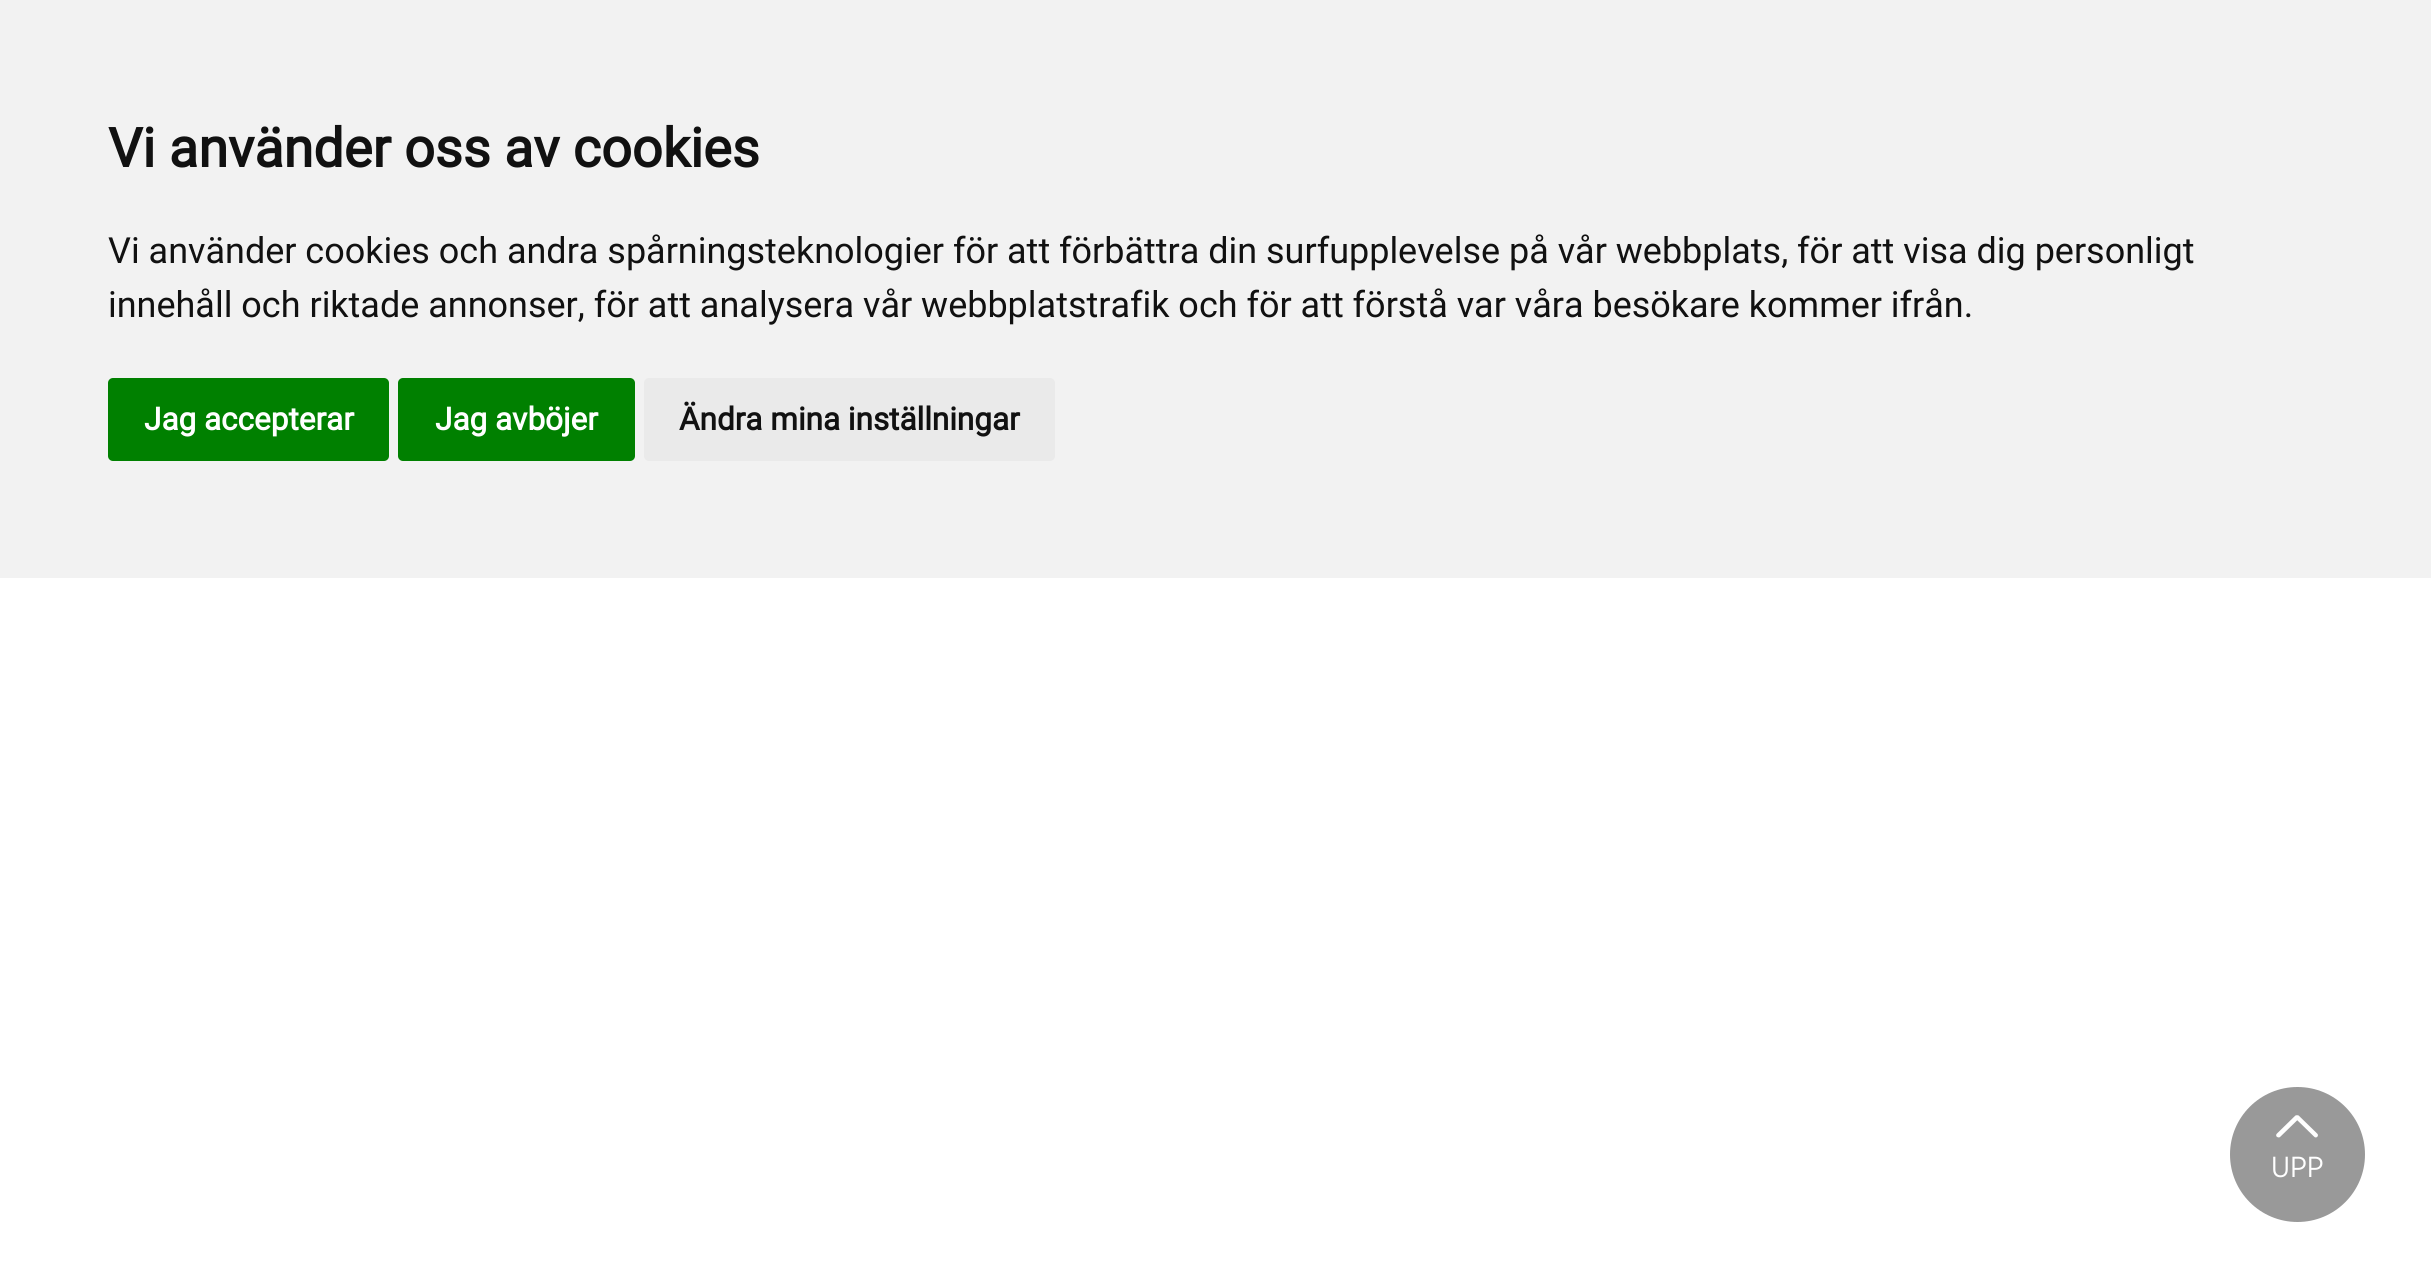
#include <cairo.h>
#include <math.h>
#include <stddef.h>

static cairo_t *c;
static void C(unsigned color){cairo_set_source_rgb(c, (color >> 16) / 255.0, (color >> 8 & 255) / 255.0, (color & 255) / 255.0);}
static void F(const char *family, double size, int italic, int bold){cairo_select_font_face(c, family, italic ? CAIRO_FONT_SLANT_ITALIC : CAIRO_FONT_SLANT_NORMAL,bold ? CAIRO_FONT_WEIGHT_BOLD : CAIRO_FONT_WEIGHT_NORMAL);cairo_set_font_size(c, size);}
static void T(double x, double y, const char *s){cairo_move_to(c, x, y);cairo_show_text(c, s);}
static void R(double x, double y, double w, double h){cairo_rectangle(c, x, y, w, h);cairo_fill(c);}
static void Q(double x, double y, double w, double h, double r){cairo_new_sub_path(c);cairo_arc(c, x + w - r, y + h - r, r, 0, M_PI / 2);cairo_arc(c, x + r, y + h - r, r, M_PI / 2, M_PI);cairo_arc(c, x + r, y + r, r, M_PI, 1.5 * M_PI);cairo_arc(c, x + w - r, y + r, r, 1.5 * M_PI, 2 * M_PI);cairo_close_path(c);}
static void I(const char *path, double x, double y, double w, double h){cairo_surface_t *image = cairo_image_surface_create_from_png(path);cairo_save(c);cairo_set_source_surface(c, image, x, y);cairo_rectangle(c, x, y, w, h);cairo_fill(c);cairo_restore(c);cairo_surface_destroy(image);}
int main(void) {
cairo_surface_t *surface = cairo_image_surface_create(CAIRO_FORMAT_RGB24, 2431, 1288);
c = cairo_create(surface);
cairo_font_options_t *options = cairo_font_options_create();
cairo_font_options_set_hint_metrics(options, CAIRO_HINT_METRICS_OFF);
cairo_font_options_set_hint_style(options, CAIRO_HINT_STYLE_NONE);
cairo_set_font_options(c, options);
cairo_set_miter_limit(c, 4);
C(0xffffff);
cairo_paint(c);
C(0xf2f2f2);
R(0,0,2431,578);
F("Roboto",54,0,1);
C(0x111111);
T(108,167,"Vi använder oss av cookies");
F("Roboto",36,0,0);
T(108,263,"Vi använder cookies och andra spårningsteknologier för att förbättra din surfupplevelse på vår webbplats, för att visa dig personligt");
T(108,317,"innehåll och riktade annonser, för att analysera vår webbplatstrafik och för att förstå var våra besökare kommer ifrån.");
C(0x008000);
Q(108,378,281,83,5);
cairo_fill(c);
F("Roboto",31.5,0,1);
C(0xffffff);
T(144,430,"Jag accepterar");
C(0x008000);
Q(398,378,237,83,5);
cairo_fill(c);
C(0xffffff);
T(435,430,"Jag avböjer");
C(0xeaeaea);
Q(644,378,411,83,5);
cairo_fill(c);
C(0x111111);
T(679,430,"Ändra mina inställningar");
C(0x999999);
cairo_new_path(c);
cairo_arc(c,2297.5,1154.5,67.5,0,2 * M_PI);
cairo_fill(c);
I("1.png",2276,1115,42,23);
F("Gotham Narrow",29,0,0);
C(0xffffff);
T(2271,1177,"UPP");
cairo_surface_write_to_png(surface, "o.png");
cairo_font_options_destroy(options);
cairo_destroy(c);
cairo_surface_destroy(surface);
return 0;
}
